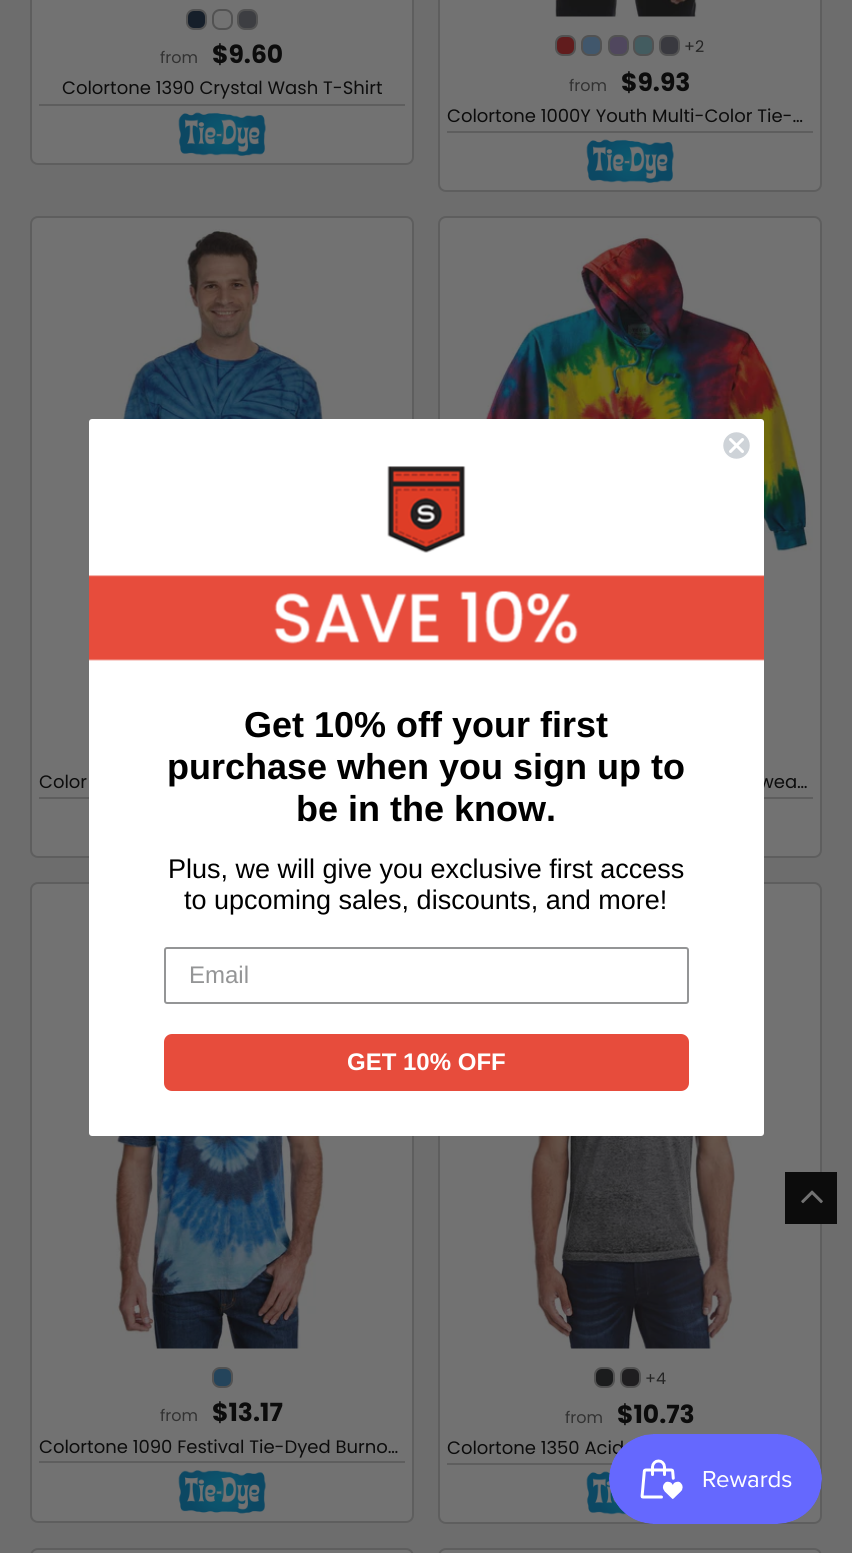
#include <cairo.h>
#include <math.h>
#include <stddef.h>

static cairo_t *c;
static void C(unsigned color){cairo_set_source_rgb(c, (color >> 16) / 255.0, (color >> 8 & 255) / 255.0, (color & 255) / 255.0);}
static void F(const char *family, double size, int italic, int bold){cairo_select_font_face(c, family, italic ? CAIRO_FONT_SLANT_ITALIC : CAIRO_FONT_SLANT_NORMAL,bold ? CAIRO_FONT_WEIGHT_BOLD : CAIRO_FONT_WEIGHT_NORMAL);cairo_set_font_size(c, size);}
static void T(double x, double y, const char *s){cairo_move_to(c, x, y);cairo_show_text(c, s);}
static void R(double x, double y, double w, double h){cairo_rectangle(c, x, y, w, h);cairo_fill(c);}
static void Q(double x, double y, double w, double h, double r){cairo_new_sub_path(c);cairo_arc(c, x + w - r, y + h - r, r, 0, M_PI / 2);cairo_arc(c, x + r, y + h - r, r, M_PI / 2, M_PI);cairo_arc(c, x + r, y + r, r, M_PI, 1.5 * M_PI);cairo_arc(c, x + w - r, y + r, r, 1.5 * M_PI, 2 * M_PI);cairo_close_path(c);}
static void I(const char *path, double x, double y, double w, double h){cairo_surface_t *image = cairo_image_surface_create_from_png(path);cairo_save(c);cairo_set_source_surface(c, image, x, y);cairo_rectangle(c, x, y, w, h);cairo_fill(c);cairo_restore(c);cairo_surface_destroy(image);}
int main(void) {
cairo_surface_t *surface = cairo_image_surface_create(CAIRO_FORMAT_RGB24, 852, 1553);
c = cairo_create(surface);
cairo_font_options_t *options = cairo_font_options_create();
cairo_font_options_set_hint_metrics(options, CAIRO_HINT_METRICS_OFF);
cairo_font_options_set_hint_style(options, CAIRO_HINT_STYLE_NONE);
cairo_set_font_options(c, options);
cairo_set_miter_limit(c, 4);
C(0x6d6d6d);
cairo_paint(c);
C(0x727272);
Q(31,-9,382,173,7);
cairo_fill_preserve(c);
C(0x5e5e5e);
cairo_stroke(c);
C(0x161f2a);
Q(187,10,19,19,7);
cairo_fill_preserve(c);
C(0x525252);
cairo_stroke(c);
Q(213,10,19,19,7);
cairo_stroke(c);
C(0x3d3e42);
Q(238,10,19,19,7);
cairo_fill_preserve(c);
C(0x525252);
cairo_stroke(c);
F("Poppins",16,0,0);
C(0x323232);
T(160,63,"from");
F("Poppins",25,0,1);
C(0x0c0c0c);
T(212,63,"$9.60");
F("Poppins",18,0,0);
T(62,94,"Colortone 1390 Crystal Wash T-Shirt");
C(0x5e5e5e);
R(39,104,366,2);
I("1.png",178,112,88,44);
C(0x727272);
Q(439,-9,382,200,7);
cairo_fill_preserve(c);
C(0x5e5e5e);
cairo_stroke(c);
I("2.png",555,0,142,17);
C(0x611c1d);
Q(556,36,19,19,7);
cairo_fill_preserve(c);
C(0x525252);
cairo_stroke(c);
C(0x41576c);
Q(582,36,19,19,7);
cairo_fill_preserve(c);
C(0x525252);
cairo_stroke(c);
C(0x50475e);
Q(609,36,19,19,7);
cairo_fill_preserve(c);
C(0x525252);
cairo_stroke(c);
C(0x435c60);
Q(634,36,19,19,7);
cairo_fill_preserve(c);
C(0x525252);
cairo_stroke(c);
C(0x39393f);
Q(660,36,19,19,7);
cairo_fill_preserve(c);
C(0x525252);
cairo_stroke(c);
F("Poppins",16,0,0);
C(0x242424);
T(684,52,"+2");
C(0x323232);
T(569,91,"from");
F("Poppins",25,0,1);
C(0x0c0c0c);
T(621,91,"$9.93");
F("Poppins",18,0,0);
T(447,122,"Colortone 1000Y Youth Multi-Color Tie-…");
C(0x5e5e5e);
R(447,131,366,2);
I("1.png",586,139,88,44);
C(0x727272);
Q(31,217,382,640,7);
cairo_fill_preserve(c);
C(0x5e5e5e);
cairo_stroke(c);
I("3.png",100,229,245,190);
C(0x0c0c0c);
T(39,788,"Color");
C(0x5e5e5e);
R(39,797,50,2);
C(0x727272);
Q(439,217,382,640,7);
cairo_fill_preserve(c);
C(0x5e5e5e);
cairo_stroke(c);
I("4.png",455,234,358,341);
C(0x0c0c0c);
T(759,788,"wea…");
C(0x5e5e5e);
R(764,797,49,2);
C(0x727272);
Q(31,883,382,639,7);
cairo_fill_preserve(c);
C(0x5e5e5e);
cairo_stroke(c);
I("5.png",112,1136,213,213);
C(0x24445b);
Q(213,1368,19,19,7);
cairo_fill_preserve(c);
C(0x525252);
cairo_stroke(c);
F("Poppins",16,0,0);
C(0x323232);
T(160,1421,"from");
F("Poppins",25,0,1);
C(0x0c0c0c);
T(212,1421,"$13.17");
F("Poppins",18,0,0);
T(39,1453,"Colortone 1090 Festival Tie-Dyed Burno…");
C(0x5e5e5e);
R(39,1461,366,2);
I("6.png",178,1470,88,44);
C(0x727272);
Q(439,883,382,640,7);
cairo_fill_preserve(c);
C(0x5e5e5e);
cairo_stroke(c);
I("7.png",528,1136,209,213);
C(0x1b1c1d);
Q(595,1368,19,19,7);
cairo_fill_preserve(c);
C(0x525252);
cairo_stroke(c);
C(0x1f1e20);
Q(621,1368,19,19,7);
cairo_fill_preserve(c);
C(0x525252);
cairo_stroke(c);
F("Poppins",16,0,0);
C(0x242424);
T(645,1384,"+4");
C(0x323232);
T(565,1423,"from");
F("Poppins",25,0,1);
C(0x0c0c0c);
T(617,1423,"$10.73");
F("Poppins",18,0,0);
T(447,1454,"Colortone 1350 Acid");
C(0x5e5e5e);
R(447,1463,165,2);
I("8.png",586,1471,42,44);
C(0x727272);
Q(31,1549,382,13,7);
cairo_fill_preserve(c);
C(0x5e5e5e);
cairo_stroke(c);
C(0x727272);
Q(439,1549,382,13,7);
cairo_fill_preserve(c);
C(0x5e5e5e);
cairo_stroke(c);
C(0x0c0c0c);
R(785,1172,52,52);
I("9.png",801,1190,22,14);
C(0xffffff);
Q(89,419,675,717,3);
cairo_fill(c);
I("10.png",723,432,27,27);
I("11.png",89,466,675,195);
F("Liberation Sans",36,0,1);
C(0x000000);
T(244,737,"Get 10% off your first");
T(167,779,"purchase when you sign up to");
T(296,821,"be in the know.");
F("Liberation Sans",27,0,0);
T(168,878,"Plus, we will give you exclusive first access");
T(184,909,"to upcoming sales, discounts, and more!");
Q(165,948,523,55,2);
C(0x949596);
cairo_stroke(c);
F("Liberation Sans",24,0,0);
T(189,983,"Email");
C(0xe74c3c);
Q(164,1034,525,57,8);
cairo_fill(c);
F("Liberation Sans",24,0,1);
C(0xffffff);
T(347,1070,"GET 10% OFF");
I("12.png",609,1434,213,90);
cairo_surface_write_to_png(surface, "o.png");
cairo_font_options_destroy(options);
cairo_destroy(c);
cairo_surface_destroy(surface);
return 0;
}
